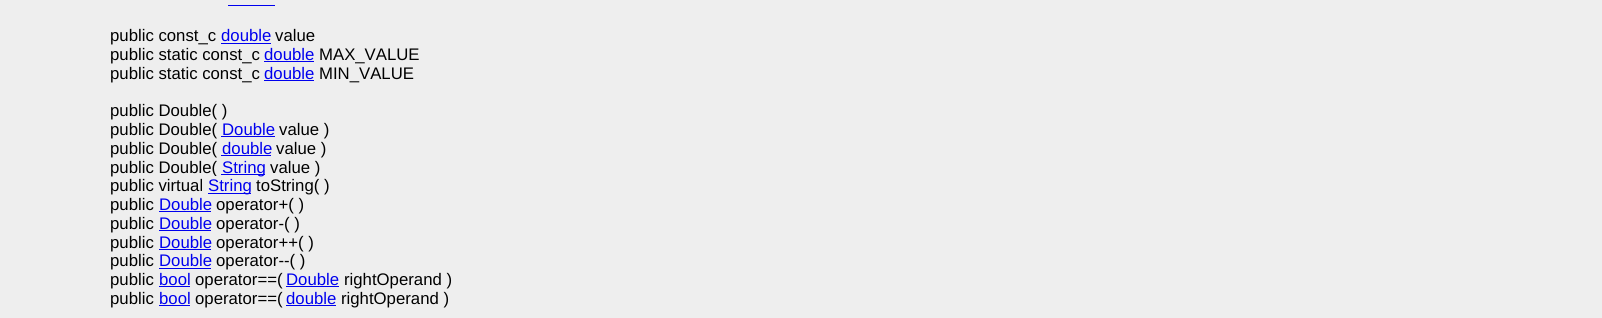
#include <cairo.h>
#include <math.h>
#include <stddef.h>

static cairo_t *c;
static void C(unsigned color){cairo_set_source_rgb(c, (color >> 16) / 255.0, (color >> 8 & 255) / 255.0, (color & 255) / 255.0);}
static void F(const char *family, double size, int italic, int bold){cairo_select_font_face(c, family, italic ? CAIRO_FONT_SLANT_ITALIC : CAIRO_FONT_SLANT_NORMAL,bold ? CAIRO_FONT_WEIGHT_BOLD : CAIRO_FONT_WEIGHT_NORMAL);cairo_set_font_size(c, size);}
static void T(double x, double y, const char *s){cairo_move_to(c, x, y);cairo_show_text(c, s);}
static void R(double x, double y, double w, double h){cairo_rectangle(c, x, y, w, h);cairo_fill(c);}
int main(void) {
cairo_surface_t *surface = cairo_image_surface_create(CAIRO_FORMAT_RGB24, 1602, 318);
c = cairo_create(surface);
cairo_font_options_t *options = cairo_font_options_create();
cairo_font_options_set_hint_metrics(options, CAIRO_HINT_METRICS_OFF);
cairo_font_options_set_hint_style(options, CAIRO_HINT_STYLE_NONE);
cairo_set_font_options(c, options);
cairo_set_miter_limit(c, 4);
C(0xeeeeee);
cairo_paint(c);
C(0x0000ee);
R(228,5,47,1);
F("Liberation Sans",16.75,0,0);
C(0x000000);
T(110,41,"public const_c");
C(0x0000ee);
T(221,41,"double");
R(221,43,50,1);
C(0x000000);
T(275,41,"value");
T(110,60,"public static const_c");
C(0x0000ee);
T(264,60,"double");
R(264,61,50,1);
C(0x000000);
T(319,60,"MAX_VALUE");
T(110,79,"public static const_c");
C(0x0000ee);
T(264,79,"double");
R(264,80,50,1);
C(0x000000);
T(319,79,"MIN_VALUE");
T(110,116,"public Double( )");
T(110,135,"public Double(");
C(0x0000ee);
T(222,135,"Double");
R(221,136,54,1);
C(0x000000);
T(279,135,"value )");
T(110,154,"public Double(");
C(0x0000ee);
T(222,154,"double");
R(221,155,50,1);
C(0x000000);
T(276,154,"value )");
T(110,173,"public Double(");
C(0x0000ee);
R(221,174,44,1);
T(222,173,"String");
C(0x000000);
T(270,173,"value )");
T(110,191,"public virtual");
C(0x0000ee);
R(208,193,43,1);
T(208,191,"String");
C(0xeeeeee);
R(215,176,2,1);
C(0x000000);
T(256,191,"toString( )");
T(110,210,"public");
C(0x0000ee);
T(159,210,"Double");
R(159,211,52,1);
C(0x000000);
T(216,210,"operator+( )");
T(110,229,"public");
C(0x0000ee);
T(159,229,"Double");
R(159,230,52,1);
C(0x000000);
T(216,229,"operator-( )");
T(110,248,"public");
C(0x0000ee);
T(159,248,"Double");
R(159,249,52,1);
C(0x000000);
T(216,248,"operator++( )");
T(110,266,"public");
C(0x0000ee);
T(159,266,"Double");
R(159,268,52,1);
C(0x000000);
T(216,266,"operator--( )");
T(110,285,"public");
C(0x0000ee);
T(159,285,"bool");
R(159,286,31,1);
C(0x000000);
T(195,285,"operator==(");
C(0x0000ee);
T(286,285,"Double");
R(286,286,53,1);
C(0x000000);
T(344,285,"rightOperand )");
T(110,304,"public");
C(0x0000ee);
T(159,304,"bool");
R(159,305,31,1);
C(0x000000);
T(195,304,"operator==(");
C(0x0000ee);
T(286,304,"double");
R(286,305,50,1);
C(0x000000);
T(341,304,"rightOperand )");
cairo_surface_write_to_png(surface, "o.png");
cairo_font_options_destroy(options);
cairo_destroy(c);
cairo_surface_destroy(surface);
return 0;
}
